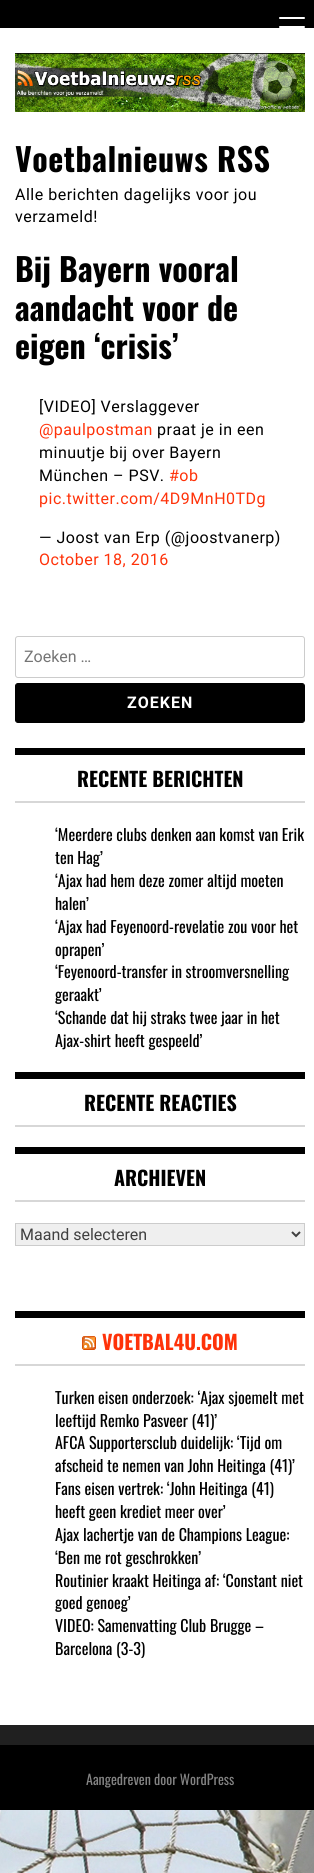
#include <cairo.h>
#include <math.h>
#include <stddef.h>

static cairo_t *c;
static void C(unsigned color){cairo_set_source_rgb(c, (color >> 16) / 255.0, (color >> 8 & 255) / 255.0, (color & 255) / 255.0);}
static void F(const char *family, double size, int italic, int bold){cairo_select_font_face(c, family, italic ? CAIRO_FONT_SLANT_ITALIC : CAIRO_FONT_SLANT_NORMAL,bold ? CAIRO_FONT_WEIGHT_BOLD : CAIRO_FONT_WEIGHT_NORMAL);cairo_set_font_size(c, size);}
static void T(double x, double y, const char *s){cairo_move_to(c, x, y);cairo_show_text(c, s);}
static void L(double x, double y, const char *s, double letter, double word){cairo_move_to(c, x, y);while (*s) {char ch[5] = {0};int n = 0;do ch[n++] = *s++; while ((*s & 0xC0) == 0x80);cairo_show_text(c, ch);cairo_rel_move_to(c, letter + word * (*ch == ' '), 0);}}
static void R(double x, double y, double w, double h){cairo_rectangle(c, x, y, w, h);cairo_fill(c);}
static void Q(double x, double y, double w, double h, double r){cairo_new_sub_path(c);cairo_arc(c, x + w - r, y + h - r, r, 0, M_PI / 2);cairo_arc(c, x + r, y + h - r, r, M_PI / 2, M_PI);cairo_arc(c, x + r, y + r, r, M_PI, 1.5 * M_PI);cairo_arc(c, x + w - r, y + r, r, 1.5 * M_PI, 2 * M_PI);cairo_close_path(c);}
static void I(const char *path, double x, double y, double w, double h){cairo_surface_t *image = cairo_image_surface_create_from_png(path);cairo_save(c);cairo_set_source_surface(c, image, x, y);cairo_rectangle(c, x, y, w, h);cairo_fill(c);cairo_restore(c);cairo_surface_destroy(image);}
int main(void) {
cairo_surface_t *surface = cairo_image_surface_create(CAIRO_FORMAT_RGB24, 314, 1873);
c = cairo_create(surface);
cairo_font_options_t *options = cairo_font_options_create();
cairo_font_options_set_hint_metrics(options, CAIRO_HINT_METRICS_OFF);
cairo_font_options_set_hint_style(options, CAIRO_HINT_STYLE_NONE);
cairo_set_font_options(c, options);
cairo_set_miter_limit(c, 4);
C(0xffffff);
cairo_paint(c);
I("1.png",0,1810,314,63);
C(0x000000);
R(0,0,314,28);
C(0xffffff);
Q(279,26,26,2,1);
cairo_fill(c);
Q(279,17,26,2,1);
cairo_fill(c);
I("2.png",15,53,290,59);
F("Oswald",32,0,1);
C(0x000000);
L(15,172,"Voetbalnieuws RSS",.5,0);
F("Roboto",16,0,0);
L(15,200,"Alle berichten dagelijks voor jou",.5,0);
L(15,222,"verzameld!",.5,0);
F("Oswald",32,0,1);
T(15,282,"Bij Bayern vooral");
T(15,321,"aandacht voor de");
T(15,359,"eigen ‘crisis’");
F("Roboto",16,0,0);
L(39,412,"[VIDEO] Verslaggever",.5,0);
C(0xff3209);
L(39,435,"@paulpostman",.5,0);
C(0x000000);
L(157,435,"praat je in een",.5,0);
L(39,458,"minuutje bij over Bayern",.5,0);
L(39,481,"München – PSV.",.5,0);
C(0xff3209);
L(169,481,"#ob",.5,0);
L(39,504,"pic.twitter.com/4D9MnH0TDg",.5,0);
C(0x000000);
L(39,543,"— Joost van Erp (@joostvanerp)",.5,0);
C(0xff3209);
L(39,565,"October 18, 2016",.5,0);
Q(15.5,636.5,289,41,2.5);
C(0xcccccc);
cairo_set_line_width(c,1);
cairo_stroke(c);
C(0x757575);
T(24,662,"Zoeken …");
C(0x000000);
Q(15.5,683.5,289,39,2.5);
cairo_fill_preserve(c);
cairo_stroke(c);
F("Roboto",16,0,1);
C(0xffffff);
L(127,708,"ZOEKEN",1,0);
C(0x000000);
R(15,748,290,7);
C(0xd7d7d7);
R(15,801,290,2);
F("Oswald",20,0,1);
C(0x000000);
T(77,787,"RECENTE BERICHTEN");
F("Oswald",16,0,0);
T(55,841,"‘Meerdere clubs denken aan komst van Erik");
T(55,864,"ten Hag’");
T(55,887,"‘Ajax had hem deze zomer altijd moeten");
T(55,910,"halen’");
T(55,933,"‘Ajax had Feyenoord-revelatie zou voor het");
T(55,956,"oprapen’");
T(55,978,"‘Feyenoord-transfer in stroomversnelling");
T(55,1001,"geraakt’");
T(55,1024,"‘Schande dat hij straks twee jaar in het");
T(55,1047,"Ajax-shirt heeft gespeeld’");
R(15,1072,290,7);
C(0xd7d7d7);
R(15,1125,290,2);
F("Oswald",20,0,1);
C(0x000000);
T(84,1111,"RECENTE REACTIES");
R(15,1147,290,7);
C(0xd7d7d7);
R(15,1200,290,2);
C(0x000000);
T(114,1186,"ARCHIEVEN");
C(0xefefef);
cairo_rectangle(c,15.5,1223.5,289,22);
cairo_fill_preserve(c);
C(0xcccccc);
cairo_stroke(c);
cairo_new_path(c);
cairo_move_to(c,292,1232);
cairo_line_to(c,296,1236);
cairo_line_to(c,300,1232);
C(0x404040);
cairo_set_line_width(c,2);
cairo_stroke(c);
F("Roboto",16,0,0);
T(20,1240,"Maand selecteren");
C(0x000000);
R(15,1311,290,7);
C(0xd7d7d7);
R(15,1364,290,2);
I("3.png",82,1336,14,14);
F("Oswald",20,0,1);
C(0xff3209);
T(102,1350,"VOETBAL4U.COM");
F("Oswald",16,0,0);
C(0x000000);
T(55,1404,"Turken eisen onderzoek: ‘Ajax sjoemelt met");
T(55,1427,"leeftijd Remko Pasveer (41)’");
T(55,1449,"AFCA Supportersclub duidelijk: ‘Tijd om");
T(55,1472,"afscheid te nemen van John Heitinga (41)’");
T(55,1495,"Fans eisen vertrek: ‘John Heitinga (41)");
T(55,1518,"heeft geen krediet meer over’");
T(55,1541,"Ajax lachertje van de Champions League:");
T(55,1564,"‘Ben me rot geschrokken’");
T(55,1587,"Routinier kraakt Heitinga af: ‘Constant niet");
T(55,1609,"goed genoeg’");
T(55,1632,"VIDEO: Samenvatting Club Brugge –");
T(55,1655,"Barcelona (3-3)");
C(0x202020);
R(0,1725,314,20);
C(0x000000);
R(0,1745,314,65);
F("Oswald",14,0,0);
C(0x838383);
T(86,1785,"Aangedreven door WordPress");
cairo_surface_write_to_png(surface, "o.png");
cairo_font_options_destroy(options);
cairo_destroy(c);
cairo_surface_destroy(surface);
return 0;
}
